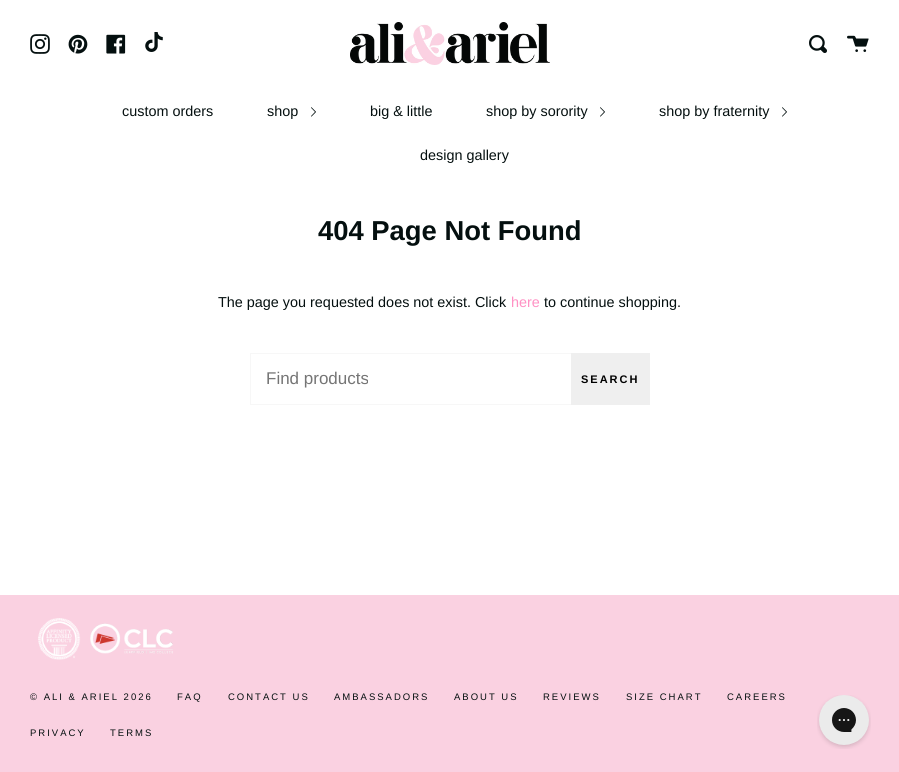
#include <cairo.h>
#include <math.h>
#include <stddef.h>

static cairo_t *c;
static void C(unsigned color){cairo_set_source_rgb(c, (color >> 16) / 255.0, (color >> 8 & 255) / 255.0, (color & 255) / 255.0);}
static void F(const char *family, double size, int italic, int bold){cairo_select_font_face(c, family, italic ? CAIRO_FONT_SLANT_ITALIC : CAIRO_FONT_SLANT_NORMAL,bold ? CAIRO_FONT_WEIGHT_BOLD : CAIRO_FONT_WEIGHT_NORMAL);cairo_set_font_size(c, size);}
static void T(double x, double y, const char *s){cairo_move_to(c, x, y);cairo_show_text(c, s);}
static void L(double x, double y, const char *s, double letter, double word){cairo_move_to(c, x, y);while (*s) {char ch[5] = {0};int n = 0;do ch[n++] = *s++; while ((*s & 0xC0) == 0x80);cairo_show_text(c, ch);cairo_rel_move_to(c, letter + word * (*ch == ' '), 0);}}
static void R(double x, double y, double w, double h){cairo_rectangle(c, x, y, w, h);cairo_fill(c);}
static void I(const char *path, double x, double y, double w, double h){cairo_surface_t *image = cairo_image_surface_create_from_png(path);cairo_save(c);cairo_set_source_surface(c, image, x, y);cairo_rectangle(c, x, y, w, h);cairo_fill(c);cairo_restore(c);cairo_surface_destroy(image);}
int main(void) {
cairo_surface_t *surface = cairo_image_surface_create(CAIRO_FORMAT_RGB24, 899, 772);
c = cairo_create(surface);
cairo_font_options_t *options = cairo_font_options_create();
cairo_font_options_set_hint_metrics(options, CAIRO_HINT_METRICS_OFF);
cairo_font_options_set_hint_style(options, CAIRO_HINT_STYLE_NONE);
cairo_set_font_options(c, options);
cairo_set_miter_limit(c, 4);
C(0xffffff);
cairo_paint(c);
I("1.png",30,34,20,20);
I("2.png",68,34,20,20);
I("3.png",106,34,20,20);
I("4.png",145,32,18,20);
I("5.png",350,22,200,43);
I("6.png",809,35,18,18);
I("7.png",847,35,22,17);
F("Liberation Sans",14.4,0,0);
C(0x040f0f);
T(122,116,"custom orders");
T(267,116,"shop");
I("8.png",311,107,5,10);
T(370,116,"big & little");
T(486,116,"shop by sorority");
I("8.png",600,107,5,10);
T(659,116,"shop by fraternity");
I("8.png",782,107,5,10);
T(420,160,"design gallery");
F("Liberation Sans",27.4,0,1);
T(318,240,"404 Page Not Found");
F("Liberation Sans",14.4,0,0);
T(218,307,"The page you requested does not exist. Click");
C(0xff91c4);
T(511,307,"here");
C(0x040f0f);
T(544,307,"to continue shopping.");
cairo_rectangle(c,250.5,353.5,399,51);
C(0xf7f7f7);
cairo_set_line_width(c,1);
cairo_stroke(c);
F("Liberation Sans",17,0,0);
C(0x757575);
T(266,384,"Find products");
C(0xefefef);
R(571,353,79,52);
F("Liberation Sans",11,0,1);
C(0x000000);
L(581,383,"SEARCH",2,0);
C(0xfad1e1);
R(0,595,899,177);
I("9.png",38,618,135,42);
F("Liberation Sans",9.5,0,0);
C(0x040f0f);
L(30,700,"© ALI & ARIEL 2026",2,0);
L(177,700,"FAQ",2,0);
L(228,700,"CONTACT US",2,0);
L(334,700,"AMBASSADORS",2,0);
L(454,700,"ABOUT US",2,0);
L(543,700,"REVIEWS",2,0);
L(626,700,"SIZE CHART",2,0);
L(727,700,"CAREERS",2,0);
L(30,736,"PRIVACY",2,0);
L(110,736,"TERMS",2,0);
I("10.png",817,695,54,54);
cairo_surface_write_to_png(surface, "o.png");
cairo_font_options_destroy(options);
cairo_destroy(c);
cairo_surface_destroy(surface);
return 0;
}
